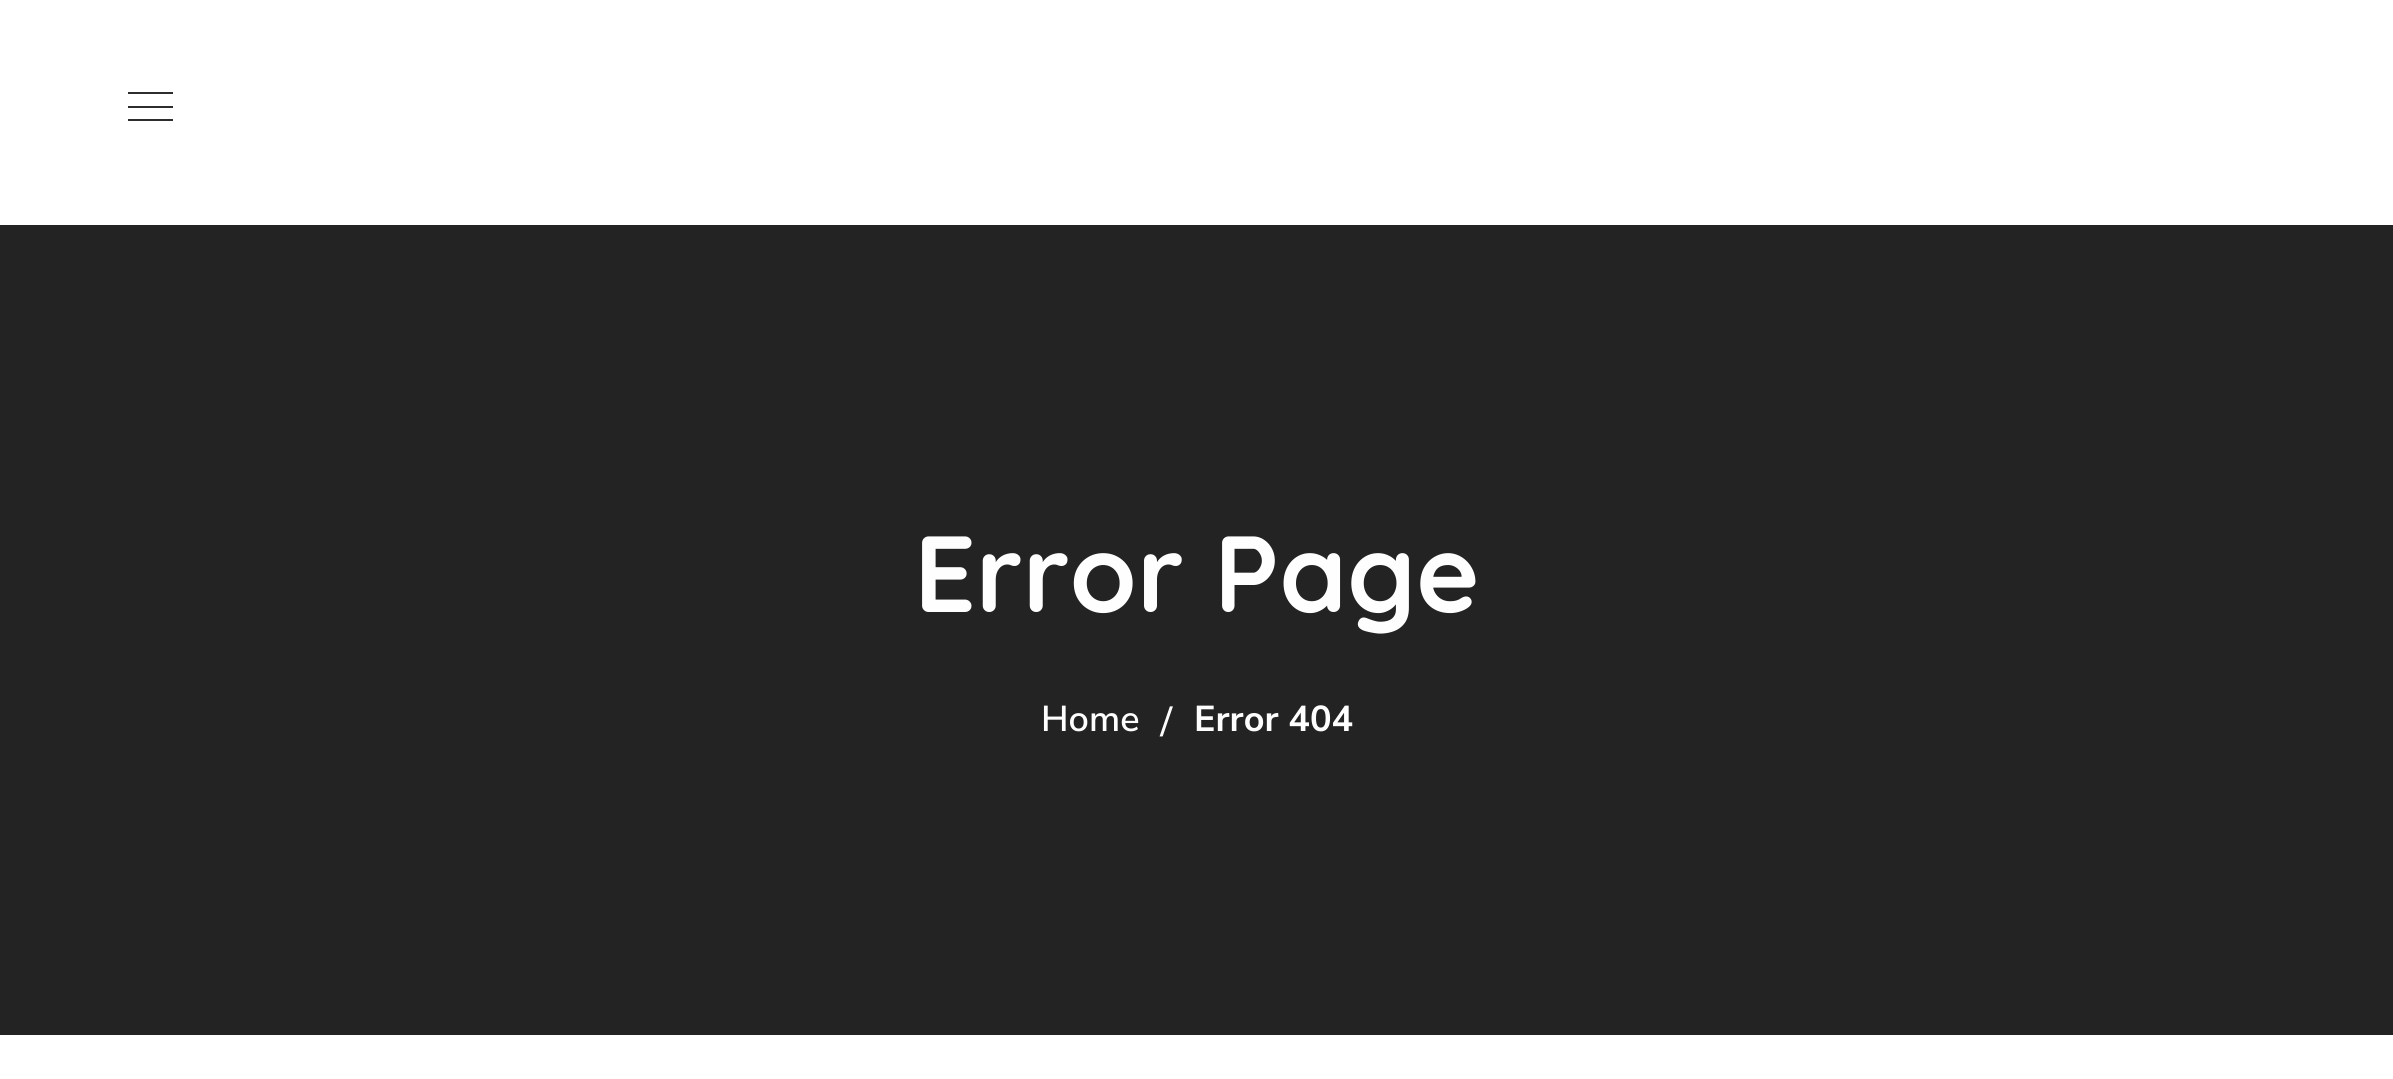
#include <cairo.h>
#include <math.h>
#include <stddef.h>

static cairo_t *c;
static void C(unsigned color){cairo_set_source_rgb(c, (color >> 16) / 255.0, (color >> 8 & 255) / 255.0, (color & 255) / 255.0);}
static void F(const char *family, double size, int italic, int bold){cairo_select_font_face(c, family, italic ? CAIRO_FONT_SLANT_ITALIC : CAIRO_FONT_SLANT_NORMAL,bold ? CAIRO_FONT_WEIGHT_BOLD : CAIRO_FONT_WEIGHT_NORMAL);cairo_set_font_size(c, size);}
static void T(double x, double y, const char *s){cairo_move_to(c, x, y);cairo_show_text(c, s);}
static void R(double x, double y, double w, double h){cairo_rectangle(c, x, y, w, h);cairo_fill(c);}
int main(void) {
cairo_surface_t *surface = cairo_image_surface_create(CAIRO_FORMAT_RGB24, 2393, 1079);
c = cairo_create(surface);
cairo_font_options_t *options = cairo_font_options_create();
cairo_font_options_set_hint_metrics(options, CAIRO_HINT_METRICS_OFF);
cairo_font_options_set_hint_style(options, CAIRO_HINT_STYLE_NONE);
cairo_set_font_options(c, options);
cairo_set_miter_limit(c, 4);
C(0xffffff);
cairo_paint(c);
C(0x2d2d2d);
R(128,92,45,2);
R(128,106,45,2);
R(128,119,45,2);
C(0x232323);
R(0,225,2393,810);
F("Quicksand",108,0,1);
C(0xfefefe);
T(914,612,"Error Page");
F("Nunito Sans SemiBold",36,0,0);
T(1041,731,"Home");
F("Liberation Serif",45,0,1);
T(1160,736,"/");
F("Nunito Sans",36,0,1);
T(1194,731,"Error 404");
cairo_surface_write_to_png(surface, "o.png");
cairo_font_options_destroy(options);
cairo_destroy(c);
cairo_surface_destroy(surface);
return 0;
}
